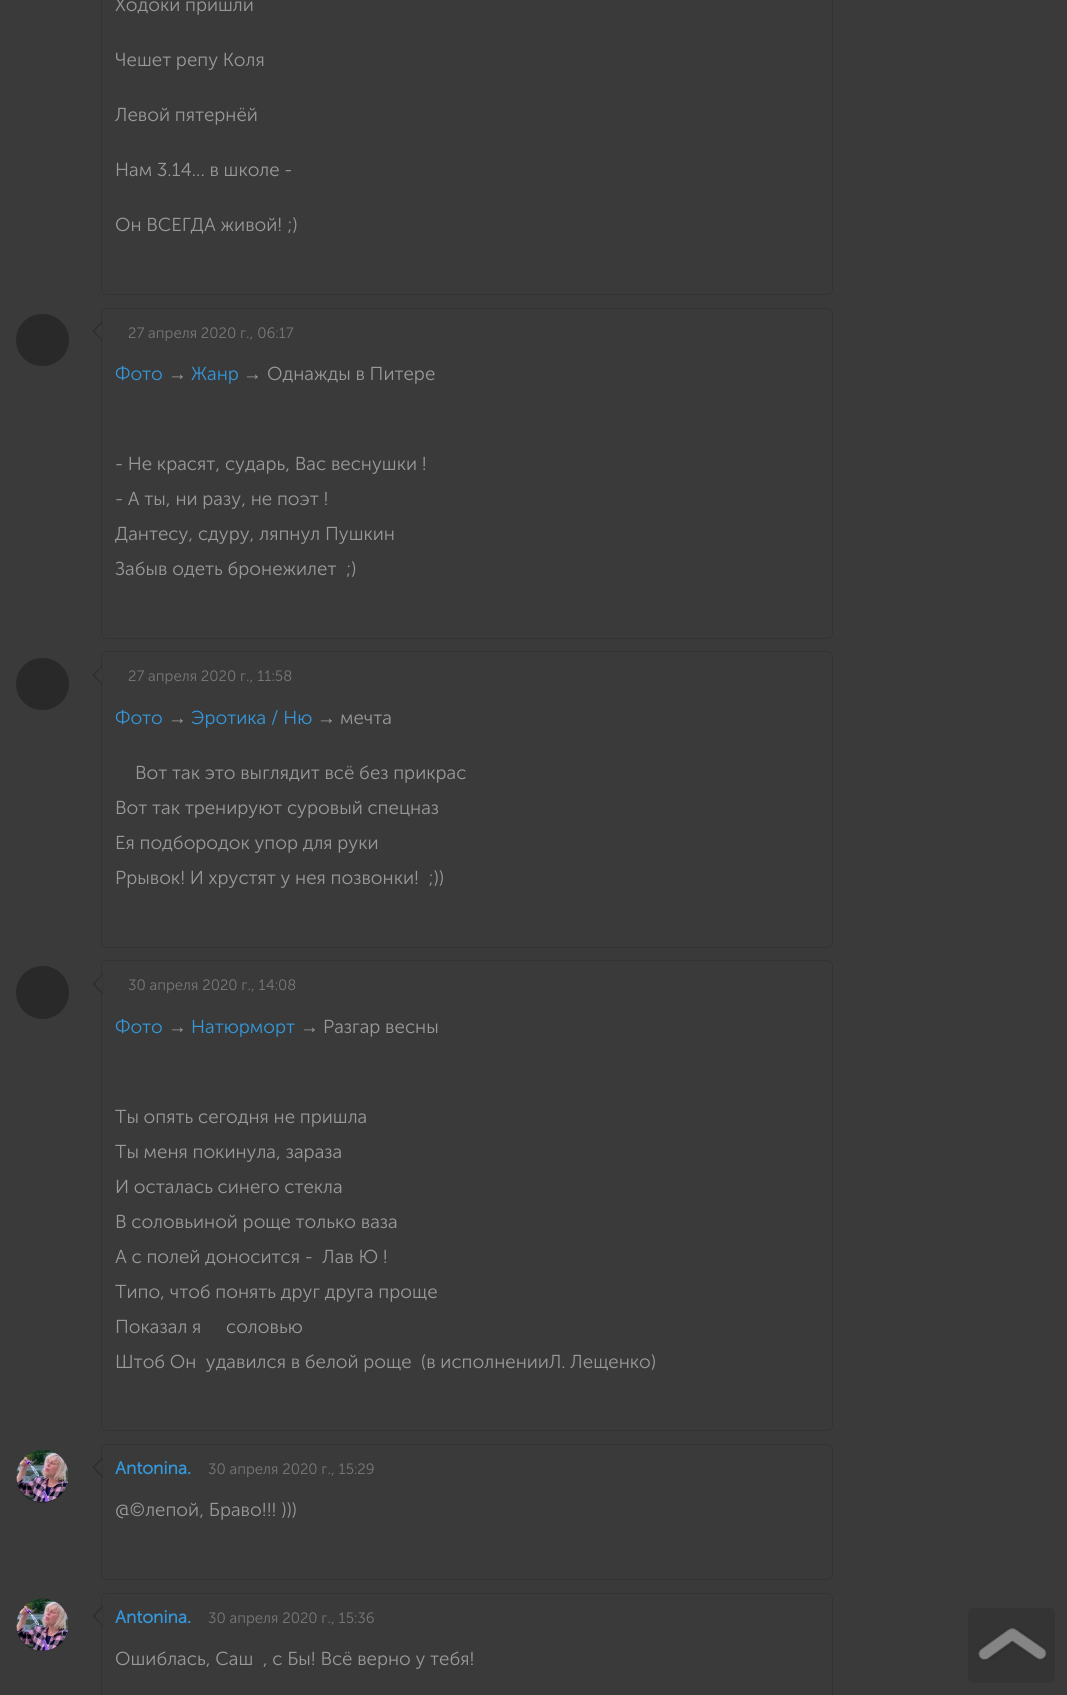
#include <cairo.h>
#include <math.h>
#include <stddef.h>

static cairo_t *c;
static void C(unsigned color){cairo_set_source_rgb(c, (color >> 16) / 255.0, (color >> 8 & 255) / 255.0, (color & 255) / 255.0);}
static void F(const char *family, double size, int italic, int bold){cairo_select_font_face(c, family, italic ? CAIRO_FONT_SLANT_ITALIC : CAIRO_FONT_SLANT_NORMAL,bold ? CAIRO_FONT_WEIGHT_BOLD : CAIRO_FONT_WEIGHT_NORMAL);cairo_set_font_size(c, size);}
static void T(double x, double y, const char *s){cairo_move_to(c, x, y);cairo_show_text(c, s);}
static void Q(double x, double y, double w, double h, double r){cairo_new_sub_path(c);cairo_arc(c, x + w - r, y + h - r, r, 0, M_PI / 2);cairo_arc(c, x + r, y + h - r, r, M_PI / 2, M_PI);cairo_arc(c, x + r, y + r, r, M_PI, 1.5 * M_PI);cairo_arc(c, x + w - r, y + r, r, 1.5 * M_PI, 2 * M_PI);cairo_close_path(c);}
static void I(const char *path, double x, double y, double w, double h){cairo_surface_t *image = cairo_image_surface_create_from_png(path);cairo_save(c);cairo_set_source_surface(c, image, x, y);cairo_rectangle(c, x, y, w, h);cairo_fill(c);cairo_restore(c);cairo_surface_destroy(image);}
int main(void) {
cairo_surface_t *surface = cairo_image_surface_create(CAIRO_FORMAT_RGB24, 1067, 1695);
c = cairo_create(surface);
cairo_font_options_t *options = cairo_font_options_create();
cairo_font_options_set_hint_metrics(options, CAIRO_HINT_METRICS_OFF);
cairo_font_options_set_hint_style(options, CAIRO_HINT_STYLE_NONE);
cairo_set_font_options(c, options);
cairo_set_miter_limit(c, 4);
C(0x3a3a3a);
cairo_paint(c);
Q(101.5,-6.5,731,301,5.5);
C(0x333333);
cairo_set_line_width(c,1);
cairo_stroke(c);
F("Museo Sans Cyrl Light",18.75,0,0);
C(0x999999);
T(115,11,"Ходоки пришли");
T(115,66,"Чешет репу Коля");
T(115,121,"Левой пятернёй");
T(115,176,"Нам 3.14... в школе -");
T(115,231,"Он ВСЕГДА живой! ;)");
C(0x292929);
Q(16,314,53,52,26);
cairo_fill(c);
Q(101.5,308.5,731,330,5.5);
C(0x333333);
cairo_stroke(c);
C(0x292929);
cairo_new_path(c);
cairo_move_to(c,102.5,321);
cairo_line_to(c,102.5,341);
cairo_line_to(c,92.5,331);
cairo_close_path(c);
cairo_fill(c);
C(0x3a3a3a);
cairo_new_path(c);
cairo_move_to(c,102.5,322.5);
cairo_line_to(c,102.5,340);
cairo_line_to(c,94,331);
cairo_close_path(c);
cairo_fill(c);
F("Museo Sans Cyrl Light",15,0,0);
C(0x777777);
T(128,338,"27 апреля 2020 г., 06:17");
F("Museo Sans Cyrl Light",18.75,0,0);
C(0x3498db);
T(115,380,"Фото");
F("Liberation Sans",18.75,0,0);
C(0x999999);
T(168,380,"→");
F("Museo Sans Cyrl Light",18.75,0,0);
C(0x3498db);
T(191,380,"Жанр");
F("Liberation Sans",18.75,0,0);
C(0x999999);
T(243,380,"→");
F("Museo Sans Cyrl Light",18.75,0,0);
T(267,380,"Однажды в Питере");
T(115,470,"- Не красят, сударь, Вас веснушки !");
T(115,505,"- А ты, ни разу, не поэт !");
T(115,540,"Дантесу, сдуру, ляпнул Пушкин");
T(115,575,"Забыв одеть бронежилет  ;)");
C(0x292929);
Q(16,658,53,52,26);
cairo_fill(c);
Q(101.5,651.5,731,296,5.5);
C(0x333333);
cairo_stroke(c);
C(0x292929);
cairo_new_path(c);
cairo_move_to(c,102.5,665);
cairo_line_to(c,102.5,685);
cairo_line_to(c,92.5,675);
cairo_close_path(c);
cairo_fill(c);
C(0x3a3a3a);
cairo_new_path(c);
cairo_move_to(c,102.5,666);
cairo_line_to(c,102.5,684);
cairo_line_to(c,94,675);
cairo_close_path(c);
cairo_fill(c);
F("Museo Sans Cyrl Light",15,0,0);
C(0x777777);
T(128,681,"27 апреля 2020 г., 11:58");
F("Museo Sans Cyrl Light",18.75,0,0);
C(0x3498db);
T(115,724,"Фото");
F("Liberation Sans",18.75,0,0);
C(0x999999);
T(168,724,"→");
F("Museo Sans Cyrl Light",18.75,0,0);
C(0x3498db);
T(191,724,"Эротика / Ню");
F("Liberation Sans",18.75,0,0);
C(0x999999);
T(317,724,"→");
F("Museo Sans Cyrl Light",18.75,0,0);
T(340,724,"мечта");
T(135,779,"Вот так это выглядит всё без прикрас");
T(115,814,"Вот так тренируют суровый спецназ");
T(115,849,"Ея подбородок упор для руки");
T(115,884,"Ррывок! И хрустят у нея позвонки!  ;))");
C(0x292929);
cairo_new_path(c);
cairo_arc(c,42.5,992.5,26.5,0,2 * M_PI);
cairo_fill(c);
Q(101.5,960.5,731,470,5.5);
C(0x333333);
cairo_stroke(c);
C(0x292929);
cairo_new_path(c);
cairo_move_to(c,102.5,974);
cairo_line_to(c,102.5,994);
cairo_line_to(c,92.5,984);
cairo_close_path(c);
cairo_fill(c);
C(0x3a3a3a);
cairo_new_path(c);
cairo_move_to(c,102.5,975);
cairo_line_to(c,102.5,992.5);
cairo_line_to(c,94,984);
cairo_close_path(c);
cairo_fill(c);
F("Museo Sans Cyrl Light",15,0,0);
C(0x777777);
T(128,990,"30 апреля 2020 г., 14:08");
F("Museo Sans Cyrl Light",18.75,0,0);
C(0x3498db);
T(115,1033,"Фото");
F("Liberation Sans",18.75,0,0);
C(0x999999);
T(168,1033,"→");
F("Museo Sans Cyrl Light",18.75,0,0);
C(0x3498db);
T(191,1033,"Натюрморт");
F("Liberation Sans",18.75,0,0);
C(0x999999);
T(300,1033,"→");
F("Museo Sans Cyrl Light",18.75,0,0);
T(323,1033,"Разгар весны");
T(115,1123,"Ты опять сегодня не пришла");
T(115,1158,"Ты меня покинула, зараза");
T(115,1193,"И осталась синего стекла");
T(115,1228,"В соловьиной роще только ваза");
T(115,1263,"А с полей доносится -  Лав Ю !");
T(115,1298,"Типо, чтоб понять друг друга проще");
T(115,1333,"Показал я");
T(226,1333,"соловью");
T(115,1368,"Штоб Он  удавился в белой роще  (в исполненииЛ. Лещенко)");
C(0x292929);
cairo_new_path(c);
cairo_arc(c,42.5,1476.5,26.5,0,2 * M_PI);
cairo_fill(c);
I("1.png",16,1449,53,53);
Q(101.5,1444.5,731,135,5.5);
C(0x333333);
cairo_stroke(c);
C(0x292929);
cairo_new_path(c);
cairo_move_to(c,102.5,1457.5);
cairo_line_to(c,102.5,1477.5);
cairo_line_to(c,92.5,1467.5);
cairo_close_path(c);
cairo_fill(c);
C(0x3a3a3a);
cairo_new_path(c);
cairo_move_to(c,102.5,1459);
cairo_line_to(c,102.5,1476);
cairo_line_to(c,94,1467.5);
cairo_close_path(c);
cairo_fill(c);
F("Museo Sans Cyrl",17.5,0,1);
C(0x3498db);
T(115,1474,"Antonina.");
F("Museo Sans Cyrl Light",15,0,0);
C(0x777777);
T(208,1474,"30 апреля 2020 г., 15:29");
F("Museo Sans Cyrl Light",18.75,0,0);
C(0x999999);
T(115,1516,"@©лепой, Браво!!! )))");
C(0x292929);
Q(16,1599,53,52,26);
cairo_fill(c);
I("2.png",16,1598,53,53);
Q(101.5,1593.5,731,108,5.5);
C(0x333333);
cairo_stroke(c);
C(0x292929);
cairo_new_path(c);
cairo_move_to(c,102.5,1606);
cairo_line_to(c,102.5,1626);
cairo_line_to(c,92.5,1616);
cairo_close_path(c);
cairo_fill(c);
C(0x3a3a3a);
cairo_new_path(c);
cairo_move_to(c,102.5,1607.5);
cairo_line_to(c,102.5,1625);
cairo_line_to(c,94,1616);
cairo_close_path(c);
cairo_fill(c);
F("Museo Sans Cyrl",17.5,0,1);
C(0x3498db);
T(115,1623,"Antonina.");
F("Museo Sans Cyrl Light",15,0,0);
C(0x777777);
T(208,1623,"30 апреля 2020 г., 15:36");
F("Museo Sans Cyrl Light",18.75,0,0);
C(0x999999);
T(115,1665,"Ошиблась, Саш  , с Бы! Всё верно у тебя!");
C(0x343434);
Q(968,1608,87,75,6);
cairo_fill(c);
I("3.png",978,1628,69,32);
cairo_surface_write_to_png(surface, "o.png");
cairo_font_options_destroy(options);
cairo_destroy(c);
cairo_surface_destroy(surface);
return 0;
}
